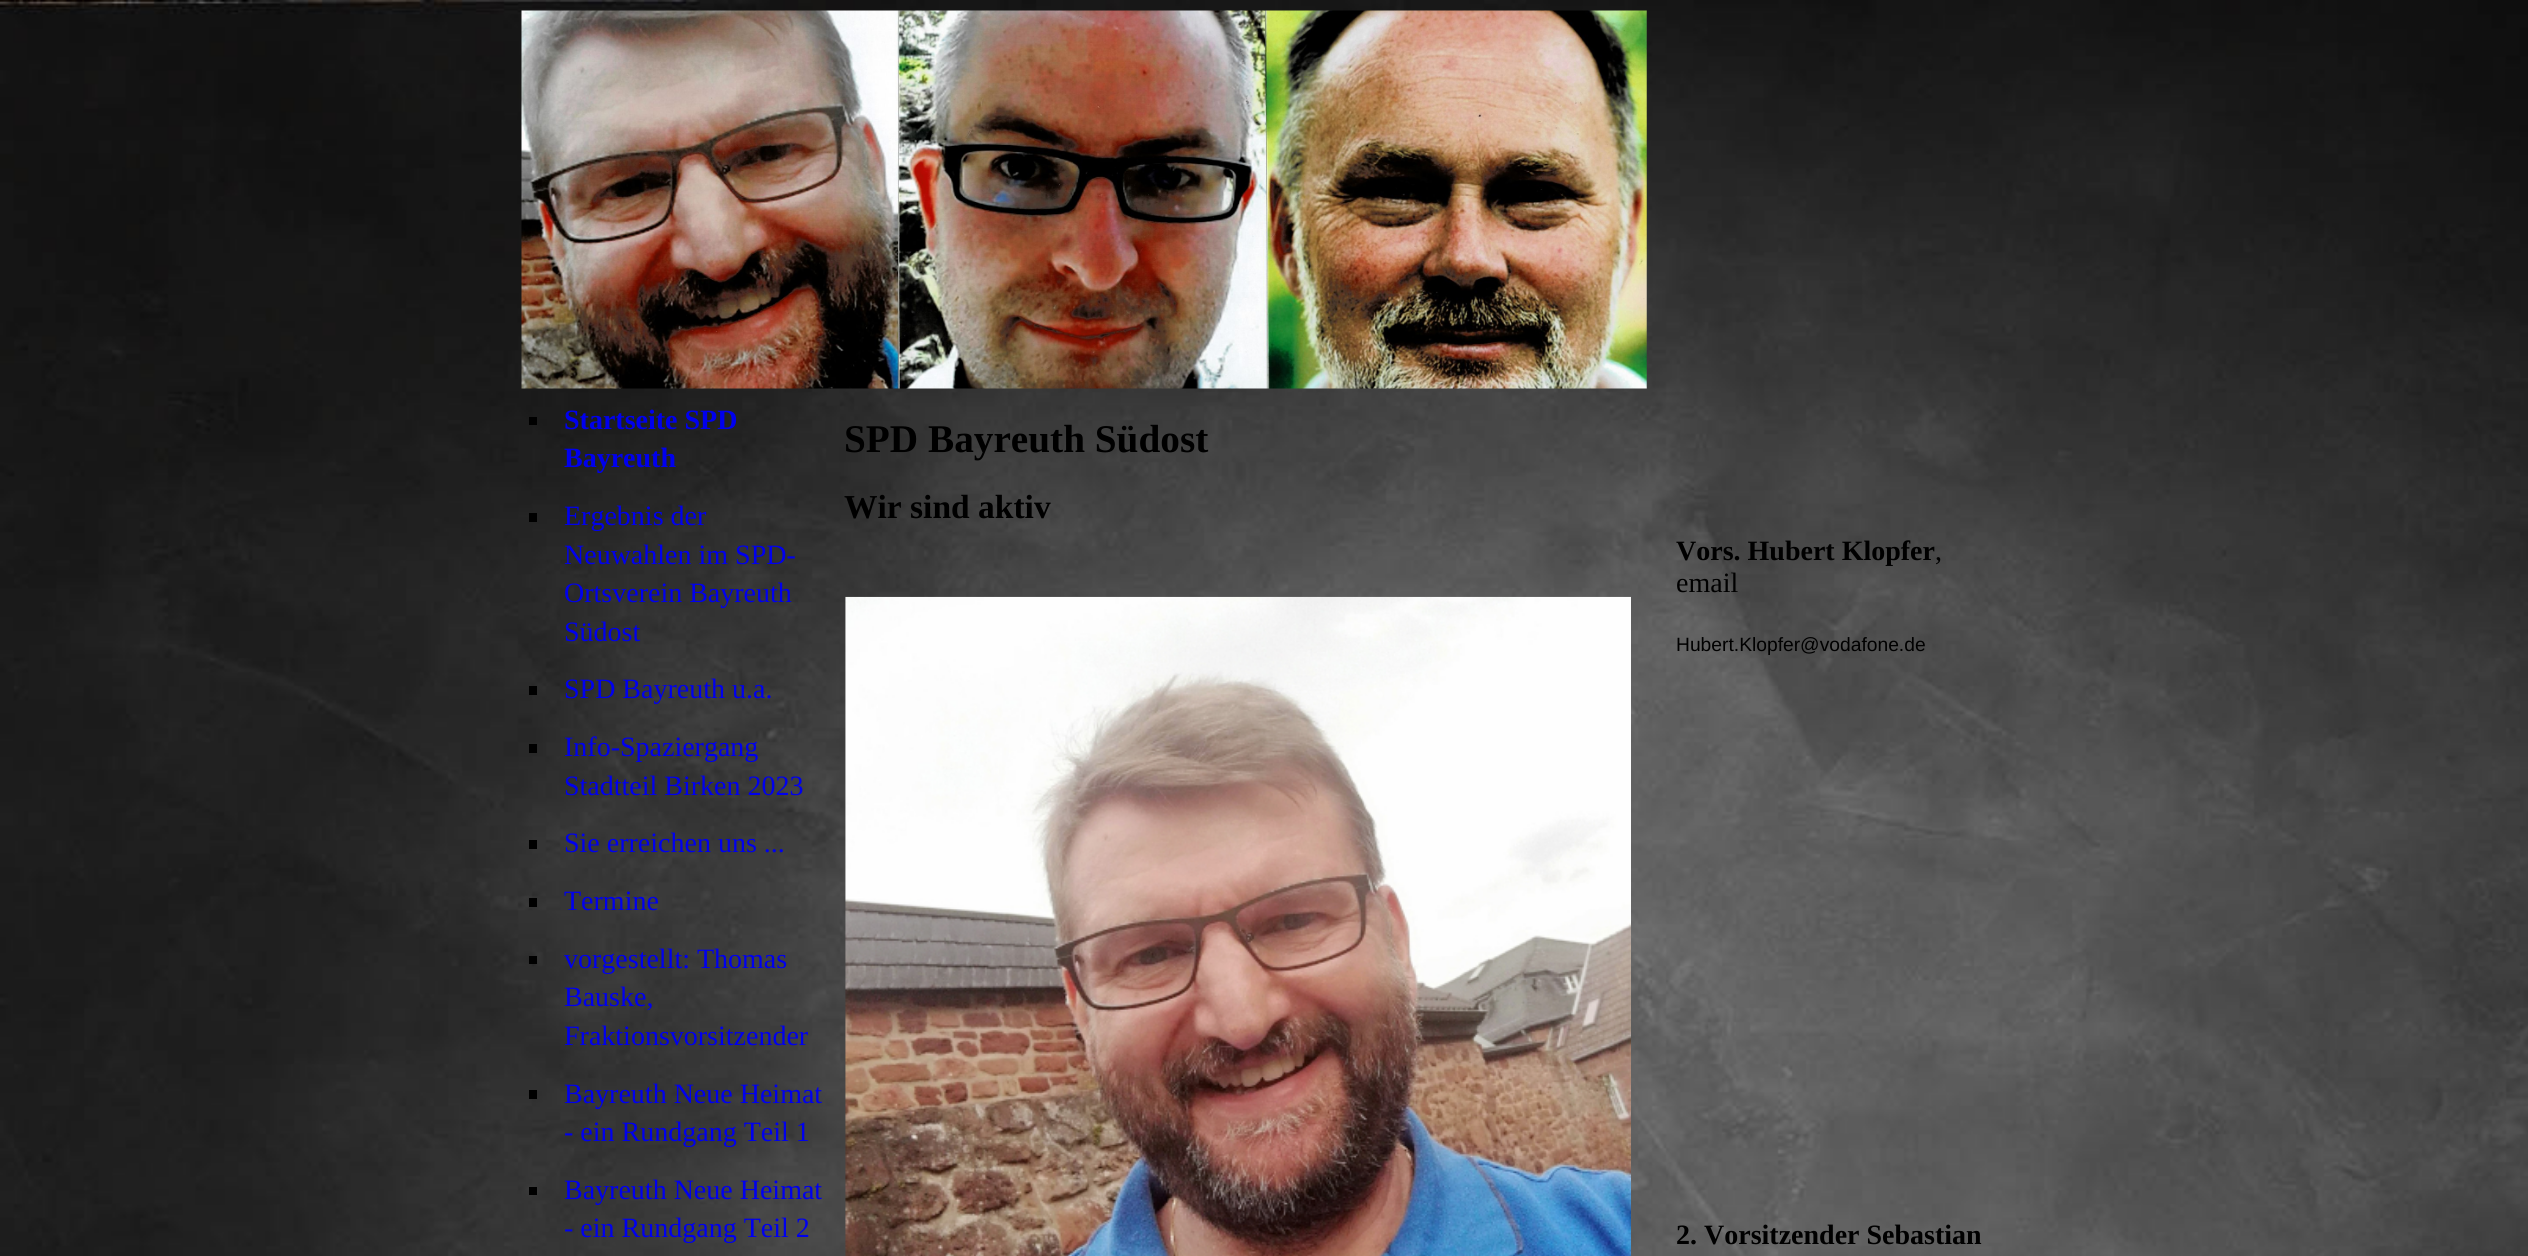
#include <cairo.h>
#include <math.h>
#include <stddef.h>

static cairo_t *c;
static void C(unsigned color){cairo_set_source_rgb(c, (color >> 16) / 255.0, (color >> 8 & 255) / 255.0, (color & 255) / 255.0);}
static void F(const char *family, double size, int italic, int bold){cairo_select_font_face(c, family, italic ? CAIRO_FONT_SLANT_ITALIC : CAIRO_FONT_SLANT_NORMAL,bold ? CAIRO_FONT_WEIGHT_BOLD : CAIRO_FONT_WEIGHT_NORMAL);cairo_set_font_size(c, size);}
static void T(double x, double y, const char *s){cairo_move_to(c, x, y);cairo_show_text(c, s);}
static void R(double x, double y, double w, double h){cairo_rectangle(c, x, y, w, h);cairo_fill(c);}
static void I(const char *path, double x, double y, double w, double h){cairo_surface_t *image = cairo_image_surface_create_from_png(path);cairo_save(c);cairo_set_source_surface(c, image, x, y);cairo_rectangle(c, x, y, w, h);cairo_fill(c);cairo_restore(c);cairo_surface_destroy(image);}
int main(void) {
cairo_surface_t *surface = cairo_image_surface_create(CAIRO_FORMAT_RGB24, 2528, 1256);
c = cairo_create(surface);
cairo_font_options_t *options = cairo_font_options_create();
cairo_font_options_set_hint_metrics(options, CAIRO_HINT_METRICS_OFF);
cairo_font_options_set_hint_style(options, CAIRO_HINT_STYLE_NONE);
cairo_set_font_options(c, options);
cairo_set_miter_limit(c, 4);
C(0xffffff);
cairo_paint(c);
I("1.png",0,0,2528,1256);
I("2.png",521,10,1126,379);
C(0x000000);
R(529,417,8,8);
F("Liberation Serif",28,0,1);
C(0x0000ee);
T(564,429,"Startseite SPD");
T(564,467,"Bayreuth");
C(0x000000);
R(529,513,8,9);
F("Liberation Serif",28,0,0);
C(0x0000ee);
T(564,525,"Ergebnis der");
T(564,564,"Neuwahlen im SPD-");
T(564,602,"Ortsverein Bayreuth");
T(564,641,"Südost");
C(0x000000);
R(529,686,8,9);
C(0x0000ee);
T(564,698,"SPD Bayreuth u.a.");
C(0x000000);
R(529,744,8,9);
C(0x0000ee);
T(564,756,"Info-Spaziergang");
T(564,795,"Stadtteil Birken 2023");
C(0x000000);
R(529,840,8,9);
C(0x0000ee);
T(564,852,"Sie erreichen uns ...");
C(0x000000);
R(529,898,8,9);
C(0x0000ee);
T(564,910,"Termine");
C(0x000000);
R(529,956,8,8);
C(0x0000ee);
T(564,968,"vorgestellt: Thomas");
T(564,1006,"Bauske,");
T(564,1045,"Fraktionsvorsitzender");
C(0x000000);
R(529,1090,8,9);
C(0x0000ee);
T(564,1103,"Bayreuth Neue Heimat");
T(564,1141,"- ein Rundgang Teil 1");
C(0x000000);
R(529,1187,8,8);
C(0x0000ee);
T(564,1199,"Bayreuth Neue Heimat");
T(564,1237,"- ein Rundgang Teil 2");
F("Liberation Serif",39.25,0,1);
C(0x000000);
T(844,452,"SPD Bayreuth Südost");
F("Liberation Serif",33.5,0,1);
T(844,518,"Wir sind aktiv");
I("3.png",845,596,786,660);
F("Liberation Serif",28,0,1);
T(1676,560,"Vors. Hubert Klopfer");
F("Liberation Serif",28,0,0);
T(1935,560,",");
cairo_save(c);
cairo_rectangle(c,1677,417,315,686);
cairo_clip(c);
T(1676,592,"email");
cairo_restore(c);
F("Liberation Sans",19.25,0,0);
T(1676,651,"Hubert.Klopfer@vodafone.de");
cairo_save(c);
cairo_rectangle(c,1677,1103,315,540);
cairo_clip(c);
F("Liberation Serif",28,0,1);
T(1676,1244,"2. Vorsitzender Sebastian");
cairo_restore(c);
cairo_surface_write_to_png(surface, "o.png");
cairo_font_options_destroy(options);
cairo_destroy(c);
cairo_surface_destroy(surface);
return 0;
}
